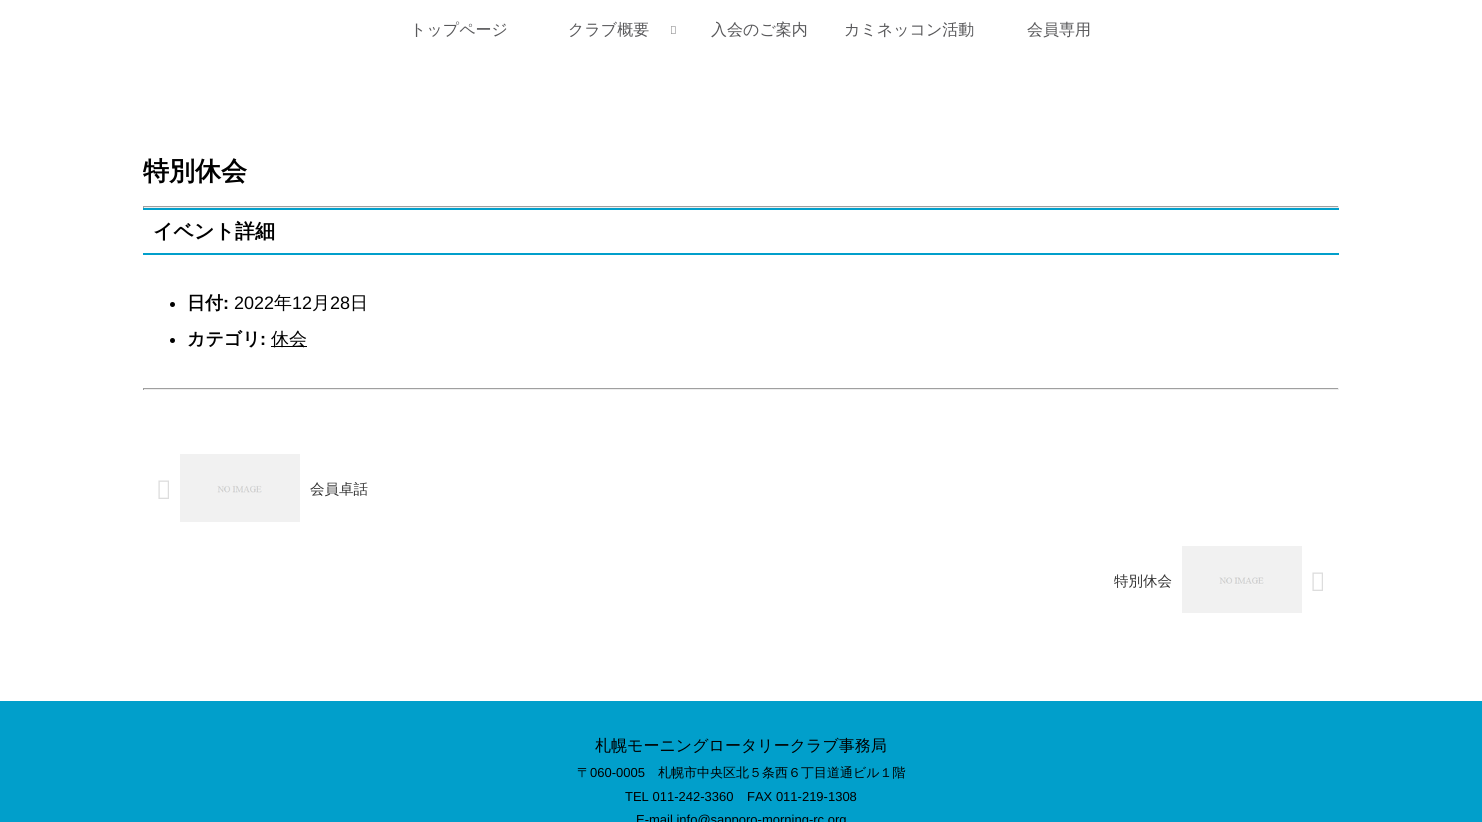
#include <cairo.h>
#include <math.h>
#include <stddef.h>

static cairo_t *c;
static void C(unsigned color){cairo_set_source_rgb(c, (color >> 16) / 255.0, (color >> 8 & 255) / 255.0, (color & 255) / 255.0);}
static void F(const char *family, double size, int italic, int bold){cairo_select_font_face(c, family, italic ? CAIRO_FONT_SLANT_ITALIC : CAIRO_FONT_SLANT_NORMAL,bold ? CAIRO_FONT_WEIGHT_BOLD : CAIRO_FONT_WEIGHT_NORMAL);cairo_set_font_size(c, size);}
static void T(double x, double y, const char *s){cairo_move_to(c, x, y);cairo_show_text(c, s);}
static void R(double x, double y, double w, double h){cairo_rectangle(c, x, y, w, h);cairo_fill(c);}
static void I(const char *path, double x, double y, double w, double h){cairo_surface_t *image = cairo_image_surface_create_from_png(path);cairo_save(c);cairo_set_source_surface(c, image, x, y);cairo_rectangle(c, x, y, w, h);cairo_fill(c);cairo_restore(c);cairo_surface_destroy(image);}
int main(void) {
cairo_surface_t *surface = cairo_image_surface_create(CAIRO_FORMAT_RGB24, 1482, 822);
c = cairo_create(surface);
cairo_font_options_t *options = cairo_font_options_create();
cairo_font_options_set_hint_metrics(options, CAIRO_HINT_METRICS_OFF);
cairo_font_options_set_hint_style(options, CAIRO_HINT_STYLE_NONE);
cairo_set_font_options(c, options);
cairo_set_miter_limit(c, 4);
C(0xffffff);
cairo_paint(c);
F("WenQuanYi Zen Hei Medium",16,0,0);
C(0x58585a);
T(410,35,"トップページ");
T(568,35,"クラブ概要");
I("1.png",671,26,5,8);
T(711,35,"入会のご案内");
T(844,35,"カミネッコン活動");
T(1027,35,"会員専用");
F("WenQuanYi Zen Hei",26,0,1);
C(0x000000);
T(143,180,"特別休会");
C(0x9f9f9f);
R(143,206,1196,1);
C(0xeeeeee);
R(1338,206,1,2);
R(143,207,1196,1);
C(0x9f9f9f);
R(143,206,1,2);
C(0x019fcb);
R(143,208,1196,2);
R(143,253,1196,2);
F("WenQuanYi Zen Hei",20,0,1);
C(0x000000);
T(153,238,"イベント詳細");
cairo_new_path(c);
cairo_arc(c,172.5,304.5,2.5,0,2 * M_PI);
cairo_fill(c);
F("WenQuanYi Zen Hei",18,0,1);
T(187,309,"日付");
F("Liberation Sans",18,0,1);
T(223,309,":");
F("Liberation Sans",18,0,0);
T(234,309,"2022");
F("WenQuanYi Zen Hei Medium",18,0,0);
T(274,309,"年");
F("Liberation Sans",18,0,0);
T(292,309,"12");
F("WenQuanYi Zen Hei Medium",18,0,0);
T(312,309,"月");
F("Liberation Sans",18,0,0);
T(330,309,"28");
F("WenQuanYi Zen Hei Medium",18,0,0);
T(350,309,"日");
cairo_new_path(c);
cairo_arc(c,172.5,340.5,2.5,0,2 * M_PI);
cairo_fill(c);
F("WenQuanYi Zen Hei",18,0,1);
T(187,345,"カテゴリ");
F("Liberation Sans",18,0,1);
T(260,345,":");
R(271,346,36,1);
F("WenQuanYi Zen Hei Medium",18,0,0);
T(271,345,"休会");
C(0x9f9f9f);
R(143,388,1196,1);
C(0xeeeeee);
R(1338,388,1,2);
R(143,389,1196,1);
C(0x9f9f9f);
R(143,388,1,2);
I("2.png",158,480,11,19);
I("3.png",180,454,120,68);
F("WenQuanYi Zen Hei Medium",14.5,0,0);
C(0x333333);
T(310,494,"会員卓話");
T(1114,586,"特別休会");
I("4.png",1182,546,120,67);
I("2.png",1312,572,11,19);
C(0x019fcb);
R(0,701,1482,121);
F("WenQuanYi Zen Hei Medium",16,0,0);
C(0x000000);
T(595,751,"札幌モーニングロータリークラブ事務局");
F("WenQuanYi Zen Hei Medium",13,0,0);
T(577,777,"〒");
F("Liberation Sans",13,0,0);
T(590,777,"060-0005");
F("WenQuanYi Zen Hei Medium",13,0,0);
T(658,777,"札幌市中央区北５条西６丁目道通ビル１階");
F("Liberation Sans",13,0,0);
T(625,801,"TEL 011-242-3360");
T(747,801,"FAX 011-219-1308");
T(636,824,"E-mail info@sapporo-morning-rc.org");
cairo_surface_write_to_png(surface, "o.png");
cairo_font_options_destroy(options);
cairo_destroy(c);
cairo_surface_destroy(surface);
return 0;
}
